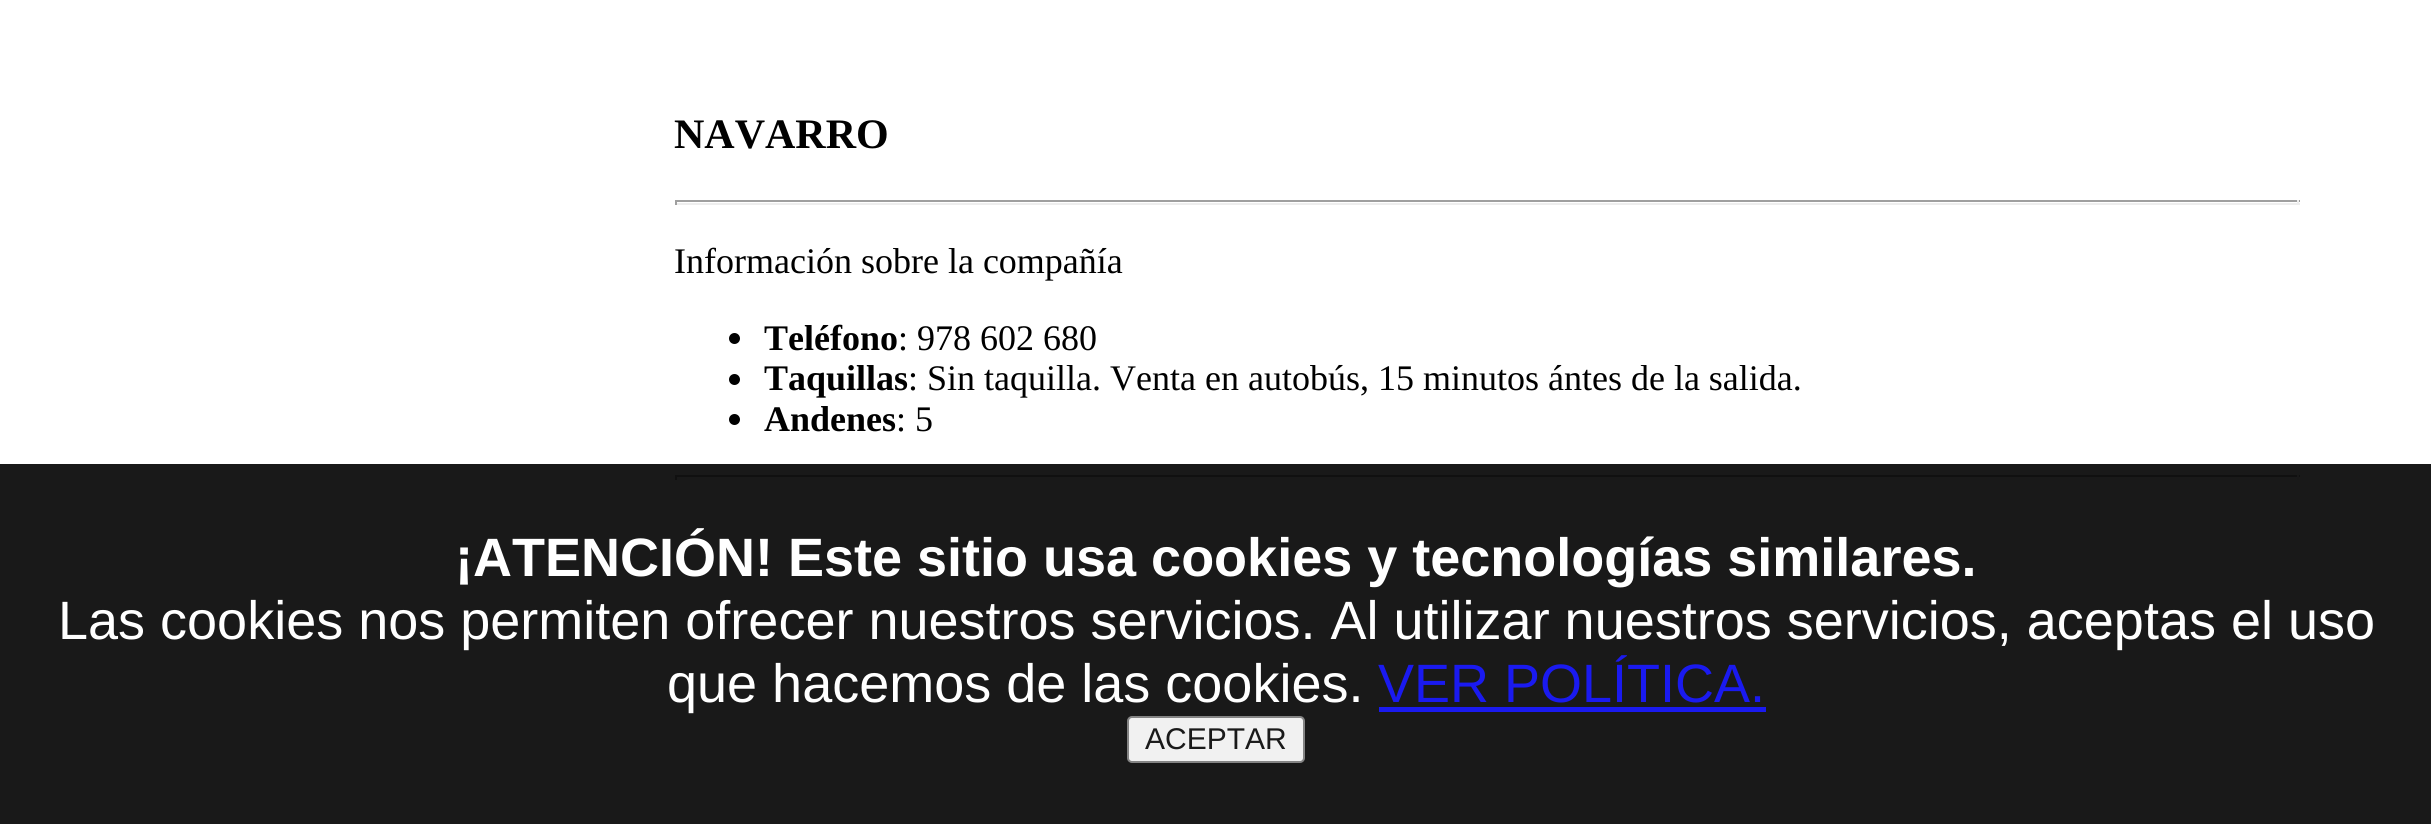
#include <cairo.h>
#include <math.h>
#include <stddef.h>

static cairo_t *c;
static void C(unsigned color){cairo_set_source_rgb(c, (color >> 16) / 255.0, (color >> 8 & 255) / 255.0, (color & 255) / 255.0);}
static void F(const char *family, double size, int italic, int bold){cairo_select_font_face(c, family, italic ? CAIRO_FONT_SLANT_ITALIC : CAIRO_FONT_SLANT_NORMAL,bold ? CAIRO_FONT_WEIGHT_BOLD : CAIRO_FONT_WEIGHT_NORMAL);cairo_set_font_size(c, size);}
static void T(double x, double y, const char *s){cairo_move_to(c, x, y);cairo_show_text(c, s);}
static void R(double x, double y, double w, double h){cairo_rectangle(c, x, y, w, h);cairo_fill(c);}
static void Q(double x, double y, double w, double h, double r){cairo_new_sub_path(c);cairo_arc(c, x + w - r, y + h - r, r, 0, M_PI / 2);cairo_arc(c, x + r, y + h - r, r, M_PI / 2, M_PI);cairo_arc(c, x + r, y + r, r, M_PI, 1.5 * M_PI);cairo_arc(c, x + w - r, y + r, r, 1.5 * M_PI, 2 * M_PI);cairo_close_path(c);}
int main(void) {
cairo_surface_t *surface = cairo_image_surface_create(CAIRO_FORMAT_RGB24, 2431, 824);
c = cairo_create(surface);
cairo_font_options_t *options = cairo_font_options_create();
cairo_font_options_set_hint_metrics(options, CAIRO_HINT_METRICS_OFF);
cairo_font_options_set_hint_style(options, CAIRO_HINT_STYLE_NONE);
cairo_set_font_options(c, options);
cairo_set_miter_limit(c, 4);
C(0xffffff);
cairo_paint(c);
C(0x191919);
R(0,464,2431,360);
F("Liberation Serif",42,0,1);
C(0x000000);
T(674,148,"NAVARRO");
C(0x9f9f9f);
R(675,200,1625,2);
C(0xeeeeee);
R(2297,200,2,5);
R(675,203,1625,2);
C(0x9f9f9f);
R(675,200,2,5);
F("Liberation Serif",36,0,0);
C(0x000000);
T(674,273,"Información sobre la compañía");
cairo_new_path(c);
cairo_arc(c,734.5,338.5,5.5,0,2 * M_PI);
cairo_fill(c);
F("Liberation Serif",36,0,1);
T(764,350,"Teléfono");
F("Liberation Serif",36,0,0);
T(898,350,": 978 602 680");
cairo_new_path(c);
cairo_arc(c,734.5,379.5,5.5,0,2 * M_PI);
cairo_fill(c);
F("Liberation Serif",36,0,1);
T(764,390,"Taquillas");
F("Liberation Serif",36,0,0);
T(908,390,": Sin taquilla. Venta en autobús, 15 minutos ántes de la salida.");
cairo_new_path(c);
cairo_arc(c,734.5,419.5,5.5,0,2 * M_PI);
cairo_fill(c);
F("Liberation Serif",36,0,1);
T(764,431,"Andenes");
F("Liberation Serif",36,0,0);
T(896,431,": 5");
C(0x101010);
R(675,475,1625,2);
C(0x181818);
R(2297,475,2,5);
C(0x101010);
R(675,475,2,5);
F("Liberation Sans",54,0,1);
C(0xffffff);
T(455,576,"¡ATENCIÓN! Este sitio usa cookies y tecnologías similares.");
F("Liberation Sans",54,0,0);
T(58,639,"Las cookies nos permiten ofrecer nuestros servicios. Al utilizar nuestros servicios, aceptas el uso");
T(667,702,"que hacemos de las cookies.");
C(0x1a1af0);
T(1378,702,"VER POLÍTICA.");
R(1379,707,387,5);
C(0xf1f1f1);
Q(1128,717,176,45,4);
cairo_fill_preserve(c);
C(0x848484);
cairo_stroke(c);
F("Liberation Sans",30,0,0);
C(0x1a1a1a);
T(1145,749,"ACEPTAR");
cairo_surface_write_to_png(surface, "o.png");
cairo_font_options_destroy(options);
cairo_destroy(c);
cairo_surface_destroy(surface);
return 0;
}
